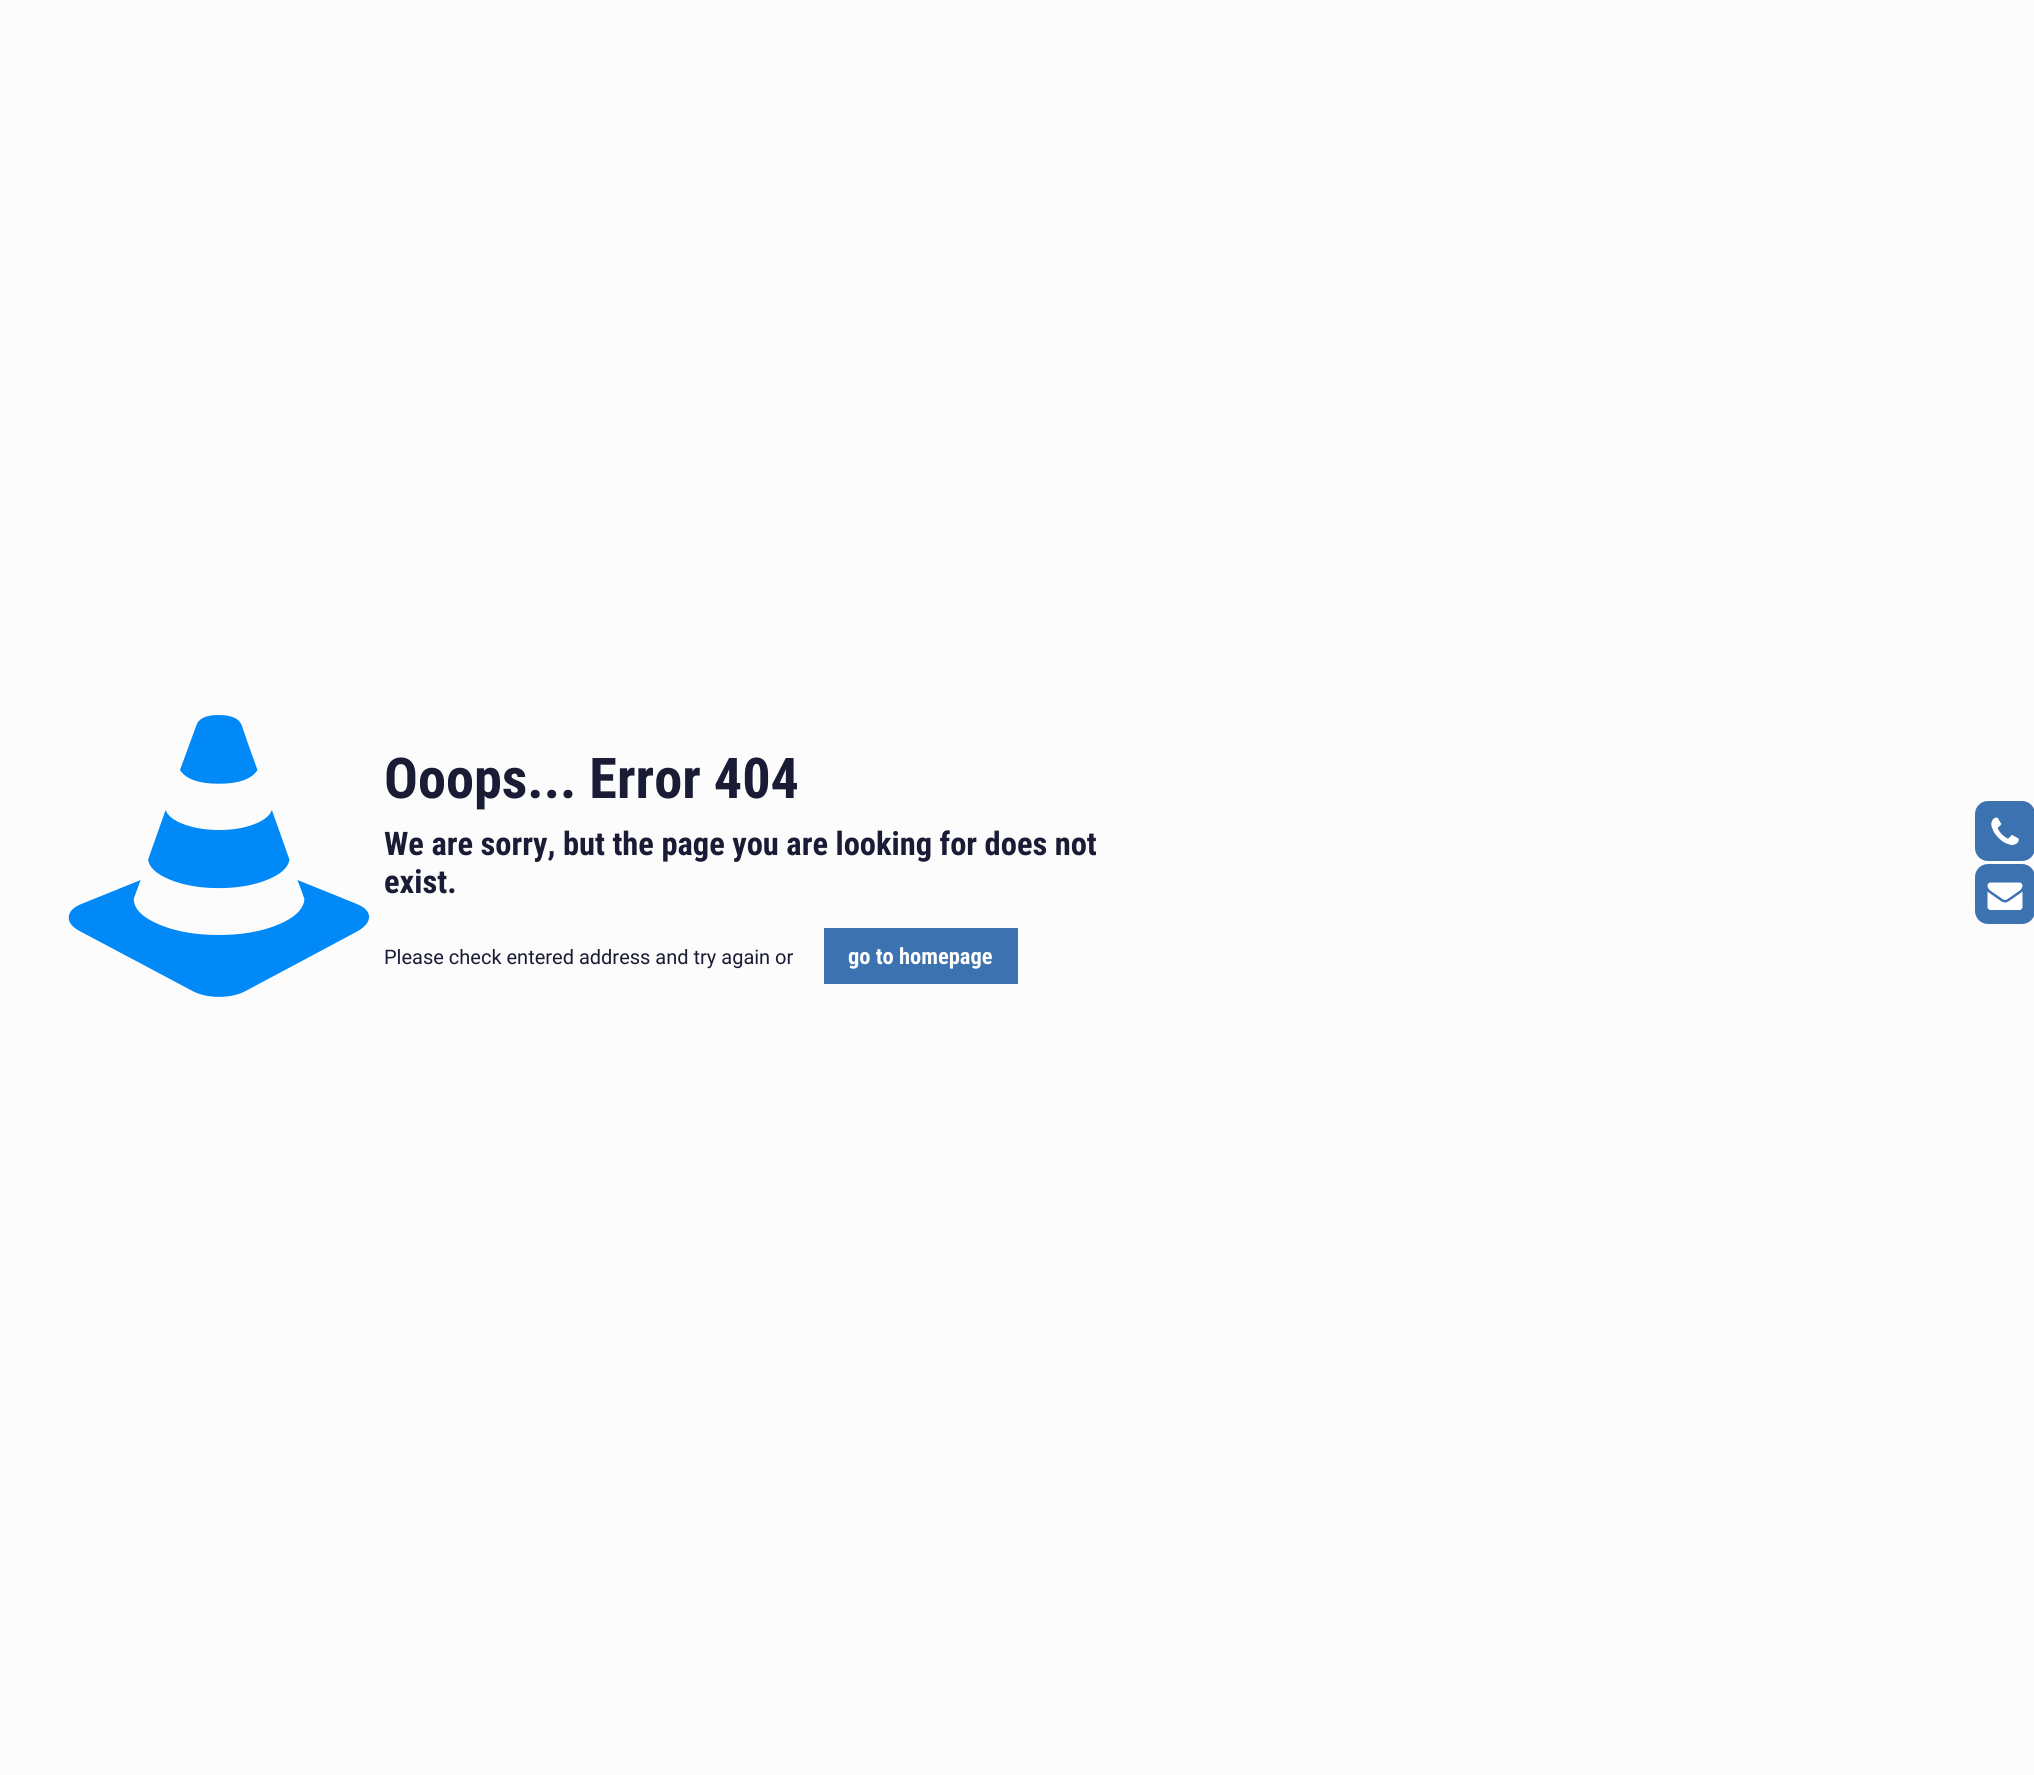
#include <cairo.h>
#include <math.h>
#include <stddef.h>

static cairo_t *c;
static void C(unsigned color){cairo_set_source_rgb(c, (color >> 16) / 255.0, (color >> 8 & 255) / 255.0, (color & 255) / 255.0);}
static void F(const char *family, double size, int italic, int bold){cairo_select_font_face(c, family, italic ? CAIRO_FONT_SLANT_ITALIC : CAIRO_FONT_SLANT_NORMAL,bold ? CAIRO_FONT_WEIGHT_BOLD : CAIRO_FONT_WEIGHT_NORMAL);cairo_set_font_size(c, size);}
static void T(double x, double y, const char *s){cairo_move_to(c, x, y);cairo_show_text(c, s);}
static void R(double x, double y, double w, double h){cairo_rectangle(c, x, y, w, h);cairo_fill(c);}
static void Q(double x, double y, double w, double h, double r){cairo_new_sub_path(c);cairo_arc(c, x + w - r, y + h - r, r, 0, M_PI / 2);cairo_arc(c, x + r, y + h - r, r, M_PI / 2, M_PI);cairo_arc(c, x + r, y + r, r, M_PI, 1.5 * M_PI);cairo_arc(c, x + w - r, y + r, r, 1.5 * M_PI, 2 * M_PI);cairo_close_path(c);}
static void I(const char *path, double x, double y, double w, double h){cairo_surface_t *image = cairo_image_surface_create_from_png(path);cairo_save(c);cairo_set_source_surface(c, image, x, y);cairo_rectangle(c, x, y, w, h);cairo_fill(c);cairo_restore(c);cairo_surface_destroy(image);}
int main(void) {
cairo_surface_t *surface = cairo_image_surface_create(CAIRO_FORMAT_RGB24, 2034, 1775);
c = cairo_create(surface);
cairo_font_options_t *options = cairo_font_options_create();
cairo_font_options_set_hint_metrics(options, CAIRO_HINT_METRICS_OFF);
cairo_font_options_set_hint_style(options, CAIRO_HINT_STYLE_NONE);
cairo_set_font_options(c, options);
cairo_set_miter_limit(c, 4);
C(0xfcfcfc);
cairo_paint(c);
I("1.png",68,715,302,282);
F("Roboto Condensed",56.25,0,1);
C(0x1a1c35);
T(384,798,"Ooops... Error 404");
F("Roboto Condensed",32.5,0,1);
T(384,855,"We are sorry, but the page you are looking for does not");
T(384,893,"exist.");
F("Roboto",20,0,0);
T(384,964,"Please check entered address and try again or");
C(0x3d72b0);
R(824,928,194,56);
F("Roboto Condensed",22.5,0,1);
C(0xffffff);
T(848,964,"go to homepage");
C(0x3d72b0);
Q(1975,801,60,60,13);
cairo_fill(c);
I("2.png",1991,817,28,28);
Q(1975,864,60,60,13);
cairo_fill(c);
I("3.png",1987,882,36,28);
cairo_surface_write_to_png(surface, "o.png");
cairo_font_options_destroy(options);
cairo_destroy(c);
cairo_surface_destroy(surface);
return 0;
}
